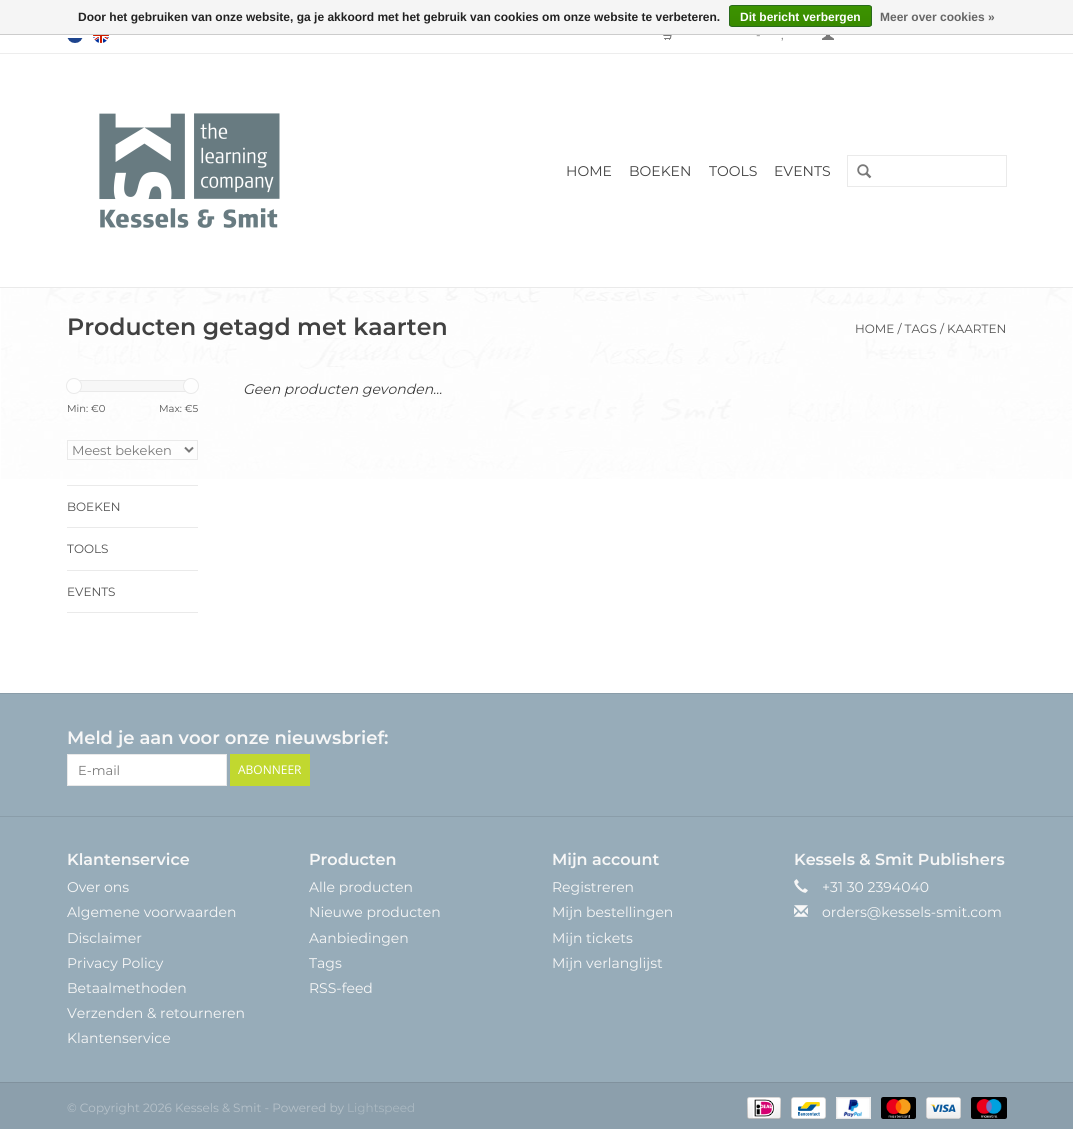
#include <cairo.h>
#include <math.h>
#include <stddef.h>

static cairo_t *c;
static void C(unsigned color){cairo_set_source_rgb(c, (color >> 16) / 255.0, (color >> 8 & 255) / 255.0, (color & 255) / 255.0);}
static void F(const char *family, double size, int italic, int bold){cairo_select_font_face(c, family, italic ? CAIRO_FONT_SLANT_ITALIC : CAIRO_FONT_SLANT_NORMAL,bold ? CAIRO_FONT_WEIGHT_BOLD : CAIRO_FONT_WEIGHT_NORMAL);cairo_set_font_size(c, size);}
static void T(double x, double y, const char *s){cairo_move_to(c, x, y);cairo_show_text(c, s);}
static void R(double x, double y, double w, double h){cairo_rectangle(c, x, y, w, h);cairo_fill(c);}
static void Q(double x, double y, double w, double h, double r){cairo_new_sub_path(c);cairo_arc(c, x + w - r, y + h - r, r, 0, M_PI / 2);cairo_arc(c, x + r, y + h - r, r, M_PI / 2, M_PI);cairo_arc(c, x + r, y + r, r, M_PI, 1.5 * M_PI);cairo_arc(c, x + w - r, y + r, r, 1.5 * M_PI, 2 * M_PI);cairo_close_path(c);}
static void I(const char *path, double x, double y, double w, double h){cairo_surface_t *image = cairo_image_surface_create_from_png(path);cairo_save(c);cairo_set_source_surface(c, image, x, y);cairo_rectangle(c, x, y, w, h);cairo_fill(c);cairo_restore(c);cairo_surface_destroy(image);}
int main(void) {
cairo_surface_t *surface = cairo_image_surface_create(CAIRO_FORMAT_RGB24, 1073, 1129);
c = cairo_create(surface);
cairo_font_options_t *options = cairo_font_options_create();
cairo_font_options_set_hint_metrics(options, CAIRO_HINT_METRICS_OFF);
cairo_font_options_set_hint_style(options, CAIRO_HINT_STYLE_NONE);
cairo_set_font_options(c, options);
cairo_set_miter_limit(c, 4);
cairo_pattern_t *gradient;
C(0xffffff);
cairo_paint(c);
I("1.png",1,288,1071,191);
C(0xf5f5f5);
R(0,0,1073,34);
C(0xcccccc);
R(0,34,1073,1);
F("Liberation Sans",12,0,1);
C(0x222222);
T(78,21,"Door het gebruiken van onze website, ga je akkoord met het gebruik van cookies om onze website te verbeteren.");
cairo_save(c);
Q(729,5,143,22,3);
cairo_clip(c);
gradient = cairo_pattern_create_linear(801,6,801,26);
cairo_pattern_add_color_stop_rgba(gradient,0,0.235,0.576,0,1);
cairo_pattern_add_color_stop_rgba(gradient,1,0.224,0.541,0,1);
cairo_set_source(c,gradient);
cairo_pattern_destroy(gradient);
R(729,6,143,20);
cairo_restore(c);
Q(729.5,5.5,142,21,2.5);
C(0x29691d);
cairo_set_line_width(c,1);
cairo_stroke(c);
C(0xffffff);
T(740,21,"Dit bericht verbergen");
C(0x666666);
T(880,21,"Meer over cookies »");
C(0xeaeaea);
R(0,287,1073,1);
C(0xededed);
R(0,53,1073,1);
I("2.png",67,35,16,8);
I("3.png",93,35,16,8);
I("4.png",663,35,9,5);
F("Montserrat",12,0,0);
C(0x797979);
T(756,39,"-");
T(781,39,",");
I("5.png",822,35,12,5);
I("6.png",99,113,181,115);
F("Montserrat",14,0,0);
C(0x414141);
T(566,176,"HOME");
T(629,176,"BOEKEN");
T(709,176,"TOOLS");
T(774,176,"EVENTS");
cairo_rectangle(c,847.5,155.5,159,31);
C(0xeaeaea);
cairo_stroke(c);
I("7.png",857,164,15,15);
F("Montserrat SemiBold",23.6,0,0);
C(0x414141);
T(67,335,"Producten getagd met kaarten");
F("Montserrat",12,0,0);
C(0x505050);
T(855,333,"HOME / TAGS / KAARTEN");
F("Montserrat",14,1,0);
C(0x414141);
T(243,394,"Geen producten gevonden...");
C(0xeaeaea);
R(67,485,131,1);
C(0xf7f7f7);
R(80,381,105,10);
cairo_rectangle(c,75.5,380.5,116,11);
C(0xeaeaea);
cairo_stroke(c);
C(0xfefefe);
cairo_arc(c,74,386,7.5,0,2 * M_PI);
cairo_fill_preserve(c);
C(0xeaeaea);
cairo_stroke(c);
C(0xfefefe);
cairo_arc(c,191,386,7.5,0,2 * M_PI);
cairo_fill_preserve(c);
C(0xeaeaea);
cairo_stroke(c);
F("Montserrat",10,0,0);
C(0x505050);
T(67,412,"Min: €0");
T(159,412,"Max: €5");
cairo_rectangle(c,67.5,440.5,130,19);
C(0xeaeaea);
cairo_stroke(c);
cairo_new_path(c);
cairo_move_to(c,185,447.5);
cairo_line_to(c,189,451.5);
cairo_line_to(c,193,447.5);
C(0x777777);
cairo_set_line_width(c,2);
cairo_stroke(c);
F("Montserrat",13,0,0);
C(0x797979);
T(72,455,"Meest bekeken");
C(0xeaeaea);
R(67,527,131,1);
F("Montserrat",12,0,0);
C(0x505050);
T(67,511,"BOEKEN");
C(0xeaeaea);
R(67,570,131,1);
C(0x505050);
T(67,553,"TOOLS");
C(0xeaeaea);
R(67,612,131,1);
C(0x505050);
T(67,596,"EVENTS");
C(0x97acb9);
R(0,694,1073,388);
C(0x8a9da9);
R(0,693,1073,1);
F("Montserrat SemiBold",18,0,0);
C(0xf7f7f7);
T(67,744,"Meld je aan voor onze nieuwsbrief:");
C(0xffffff);
cairo_rectangle(c,67.5,754.5,159,31);
cairo_fill_preserve(c);
C(0xe9e9e9);
cairo_set_line_width(c,1);
cairo_stroke(c);
F("Montserrat",13,0,0);
C(0x797979);
T(78,775,"E-mail");
C(0xc1d82f);
R(230,754,80,32);
F("Open Sans",12,0,0);
C(0xffffff);
T(238,774,"ABONNEER");
C(0x8a9da9);
R(0,816,1073,1);
F("Montserrat SemiBold",16,0,0);
C(0xf7f7f7);
T(67,865,"Klantenservice");
F("Montserrat",14,0,0);
T(67,892,"Over ons");
T(67,917,"Algemene voorwaarden");
T(67,943,"Disclaimer");
T(67,968,"Privacy Policy");
T(67,993,"Betaalmethoden");
T(67,1018,"Verzenden & retourneren");
T(67,1043,"Klantenservice");
F("Montserrat SemiBold",16,0,0);
T(309,865,"Producten");
F("Montserrat",14,0,0);
T(309,892,"Alle producten");
T(309,917,"Nieuwe producten");
T(309,943,"Aanbiedingen");
T(309,968,"Tags");
T(309,993,"RSS-feed");
F("Montserrat SemiBold",16,0,0);
T(552,865,"Mijn account");
F("Montserrat",14,0,0);
T(552,892,"Registreren");
T(552,917,"Mijn bestellingen");
T(552,943,"Mijn tickets");
T(552,968,"Mijn verlanglijst");
F("Montserrat SemiBold",16,0,0);
T(794,865,"Kessels & Smit Publishers");
I("8.png",794,879,14,14);
F("Montserrat",14,0,0);
T(822,892,"+31 30 2394040");
I("9.png",794,905,14,12);
T(822,917,"orders@kessels-smit.com");
C(0x80919d);
R(0,1082,1073,1);
C(0x8c9fac);
R(0,1083,1073,46);
F("Montserrat",12,0,0);
C(0xb7c2ca);
T(67,1112,"© Copyright 2026 Kessels & Smit - Powered by");
C(0xaab8c1);
T(347,1112,"Lightspeed");
I("10.png",747,1097,34,22);
I("11.png",791,1097,35,22);
I("12.png",836,1097,35,22);
I("13.png",881,1097,35,22);
I("14.png",926,1097,35,22);
I("15.png",971,1097,36,22);
cairo_surface_write_to_png(surface, "o.png");
cairo_font_options_destroy(options);
cairo_destroy(c);
cairo_surface_destroy(surface);
return 0;
}
